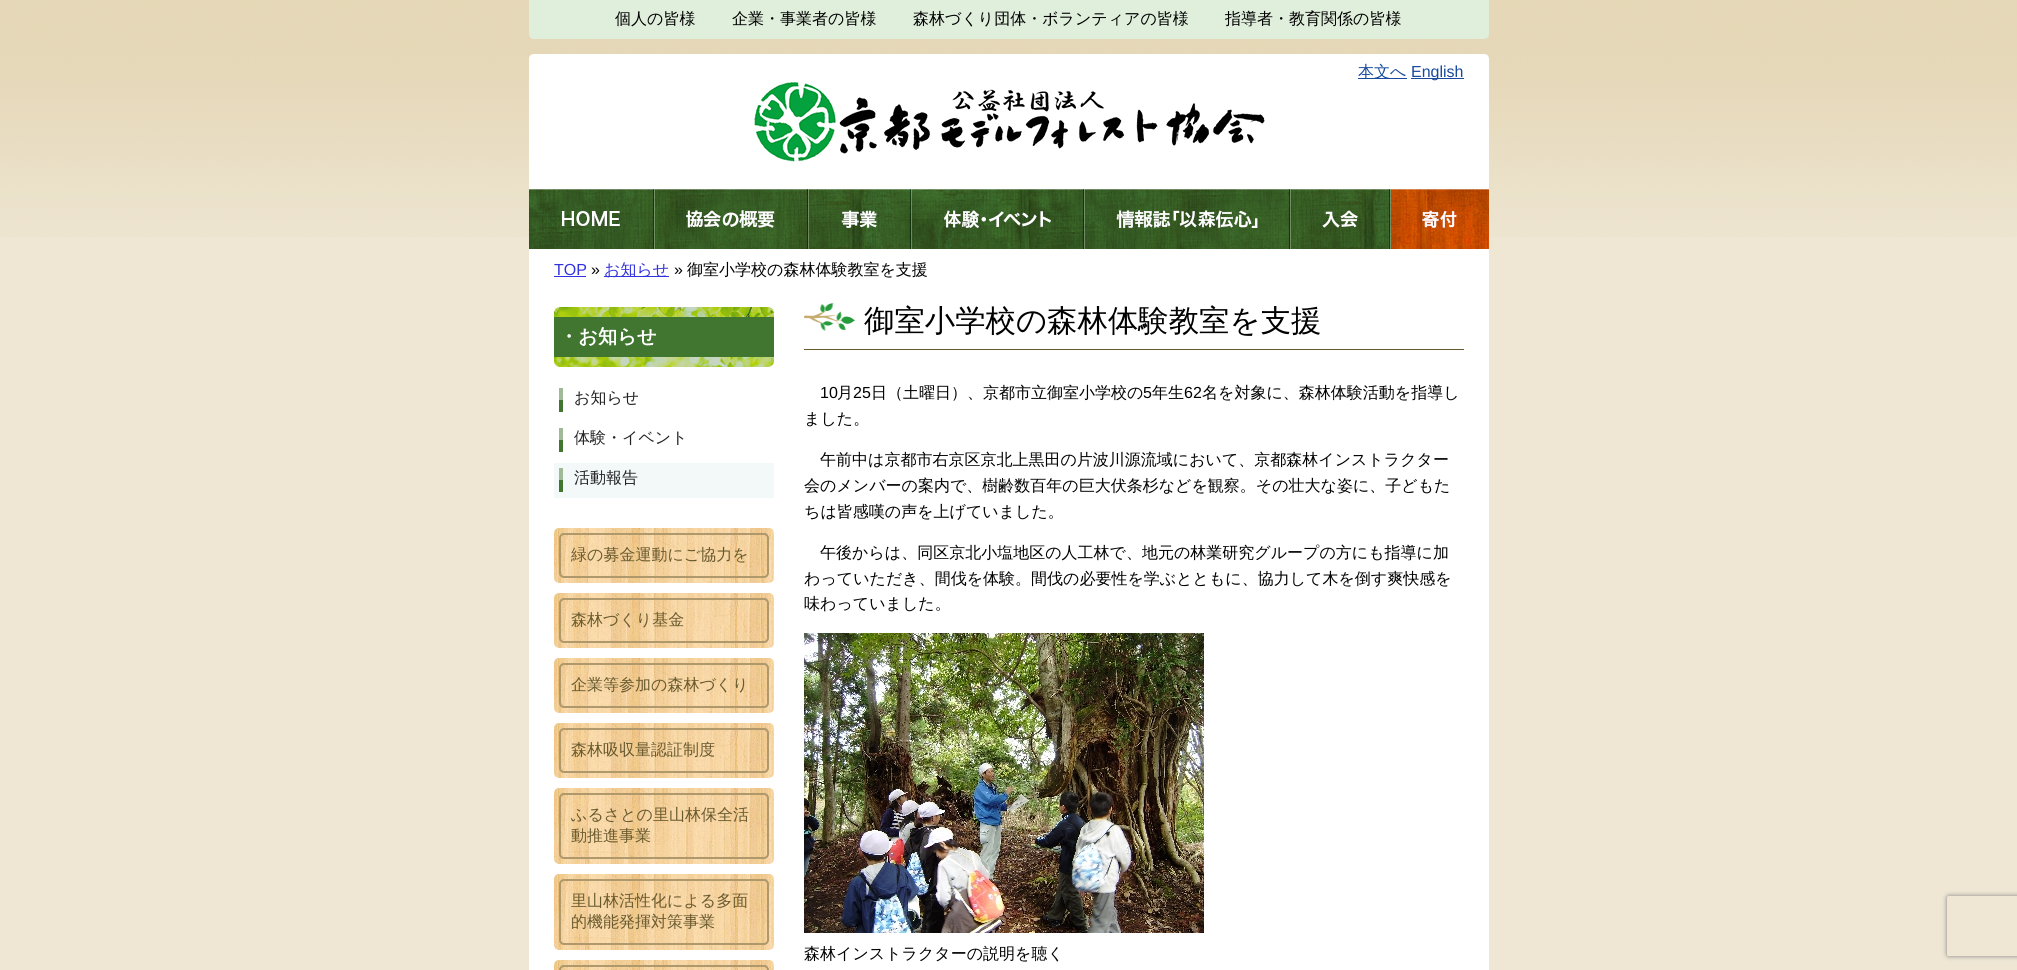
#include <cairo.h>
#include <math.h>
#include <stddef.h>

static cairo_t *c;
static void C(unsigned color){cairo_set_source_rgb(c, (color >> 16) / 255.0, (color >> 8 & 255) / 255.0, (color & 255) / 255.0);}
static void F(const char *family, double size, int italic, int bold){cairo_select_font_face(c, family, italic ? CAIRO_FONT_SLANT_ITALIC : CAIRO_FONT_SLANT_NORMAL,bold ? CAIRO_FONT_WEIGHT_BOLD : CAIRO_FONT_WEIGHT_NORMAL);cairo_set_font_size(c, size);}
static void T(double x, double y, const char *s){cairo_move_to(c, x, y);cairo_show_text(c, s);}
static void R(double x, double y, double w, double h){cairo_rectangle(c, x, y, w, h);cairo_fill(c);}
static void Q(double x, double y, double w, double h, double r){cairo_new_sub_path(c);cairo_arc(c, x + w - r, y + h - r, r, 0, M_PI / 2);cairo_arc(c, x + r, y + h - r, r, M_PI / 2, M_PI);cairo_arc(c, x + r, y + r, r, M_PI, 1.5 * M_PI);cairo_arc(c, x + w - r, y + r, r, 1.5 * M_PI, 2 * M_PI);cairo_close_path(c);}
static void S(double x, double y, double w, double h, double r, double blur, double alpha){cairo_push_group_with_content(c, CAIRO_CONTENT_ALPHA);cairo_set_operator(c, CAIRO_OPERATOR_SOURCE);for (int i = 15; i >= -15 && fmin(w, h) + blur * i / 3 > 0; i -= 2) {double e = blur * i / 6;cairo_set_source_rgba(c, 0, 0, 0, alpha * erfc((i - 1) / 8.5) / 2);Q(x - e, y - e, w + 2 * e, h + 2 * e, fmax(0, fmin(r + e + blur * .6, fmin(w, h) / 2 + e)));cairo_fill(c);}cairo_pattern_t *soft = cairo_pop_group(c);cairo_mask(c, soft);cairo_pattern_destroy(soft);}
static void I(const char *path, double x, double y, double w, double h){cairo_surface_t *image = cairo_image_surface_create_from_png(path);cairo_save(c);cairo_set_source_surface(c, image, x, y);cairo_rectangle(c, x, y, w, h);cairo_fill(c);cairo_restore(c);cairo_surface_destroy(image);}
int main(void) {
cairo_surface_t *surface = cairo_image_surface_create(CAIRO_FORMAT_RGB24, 2017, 970);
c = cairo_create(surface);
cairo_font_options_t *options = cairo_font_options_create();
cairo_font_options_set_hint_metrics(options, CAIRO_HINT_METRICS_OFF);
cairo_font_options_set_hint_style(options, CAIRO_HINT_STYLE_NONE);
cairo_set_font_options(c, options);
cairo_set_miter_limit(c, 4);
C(0xefe7d4);
cairo_paint(c);
I("1.png",0,0,2017,237);
C(0xffffff);
R(529,249,960,721);
C(0xe0eedc);
cairo_new_path(c);
cairo_move_to(c,529,0);
cairo_line_to(c,1489,0);
cairo_line_to(c,1489,34);
cairo_curve_to(c,1489,37,1487,39,1484,39);
cairo_line_to(c,534,39);
cairo_curve_to(c,531,39,529,37,529,34);
cairo_close_path(c);
cairo_fill(c);
F("WenQuanYi Zen Hei Medium",16,0,0);
C(0x000000);
T(615,24,"個人の皆様");
T(732,24,"企業・事業者の皆様");
T(913,24,"森林づくり団体・ボランティアの皆様");
T(1225,24,"指導者・教育関係の皆様");
C(0xffffff);
cairo_new_path(c);
cairo_move_to(c,534,54);
cairo_line_to(c,1484,54);
cairo_curve_to(c,1487,54,1489,56,1489,59);
cairo_line_to(c,1489,189);
cairo_line_to(c,529,189);
cairo_line_to(c,529,59);
cairo_curve_to(c,529,56,531,54,534,54);
cairo_close_path(c);
cairo_fill(c);
I("2.png",754,82,511,80);
C(0x18499d);
R(1358,78,49,1);
T(1358,77,"本文へ");
R(1411,78,53,1);
F("Liberation Sans",16,0,0);
T(1411,77,"English");
I("3.png",529,189,125,60);
I("4.png",654,189,154,60);
I("5.png",808,189,103,60);
I("6.png",911,189,173,60);
I("7.png",1084,189,206,60);
I("8.png",1290,189,100,60);
I("9.png",1390,189,99,60);
C(0x3333dd);
T(554,275,"TOP");
R(554,276,32,1);
C(0x000000);
T(591,275,"»");
C(0x3333dd);
R(604,276,65,1);
F("WenQuanYi Zen Hei Medium",16,0,0);
T(604,275,"お知らせ");
F("Liberation Sans",16,0,0);
C(0x000000);
T(674,275,"»");
F("WenQuanYi Zen Hei Medium",16,0,0);
T(687,275,"御室小学校の森林体験教室を支援");
C(0x417630);
R(554,317,220,40);
I("10.png",554,307,220,60);
F("WenQuanYi Zen Hei",19.25,0,1);
C(0xffffff);
T(559,343,"・お知らせ");
I("11.png",559,388,4,24);
F("WenQuanYi Zen Hei Medium",16,0,0);
C(0x222222);
T(574,403,"お知らせ");
I("11.png",559,428,4,24);
T(574,443,"体験・イベント");
C(0xf3f9f9);
R(554,463,220,35);
I("11.png",559,468,4,24);
C(0x222222);
T(574,483,"活動報告");
I("12.png",554,528,220,55);
Q(560,534,208,43,4);
C(0xae986c);
cairo_stroke(c);
C(0x695a2e);
T(571,560,"緑の募金運動にご協力を");
I("12.png",554,593,220,55);
Q(560,599,208,43,4);
C(0xae986c);
cairo_stroke(c);
C(0x695a2e);
T(571,625,"森林づくり基金");
I("12.png",554,658,220,55);
Q(560,664,208,43,4);
C(0xae986c);
cairo_stroke(c);
C(0x695a2e);
T(571,690,"企業等参加の森林づくり");
I("12.png",554,723,220,55);
Q(560,729,208,43,4);
C(0xae986c);
cairo_stroke(c);
C(0x695a2e);
T(571,755,"森林吸収量認証制度");
I("13.png",554,788,220,76);
Q(560,794,208,64,4);
C(0xae986c);
cairo_stroke(c);
C(0x695a2e);
T(571,820,"ふるさとの里山林保全活");
T(571,841,"動推進事業");
I("13.png",554,874,220,76);
Q(560,880,208,64,4);
C(0xae986c);
cairo_stroke(c);
C(0x695a2e);
T(571,906,"里山林活性化による多面");
T(571,927,"的機能発揮対策事業");
I("14.png",554,960,220,10);
Q(560,966,208,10,4);
C(0xae986c);
cairo_stroke(c);
I("15.png",804,303,51,28);
C(0x695a2e);
R(804,349,660,1);
F("WenQuanYi Zen Hei Medium",30.4,0,0);
C(0x000000);
T(864,331,"御室小学校の森林体験教室を支援");
F("Liberation Sans",16,0,0);
T(820,398,"10");
F("WenQuanYi Zen Hei Medium",16,0,0);
T(837,398,"月");
F("Liberation Sans",16,0,0);
T(853,398,"25");
F("WenQuanYi Zen Hei Medium",16,0,0);
T(871,398,"日（土曜日）、京都市立御室小学校の");
F("Liberation Sans",16,0,0);
T(1143,398,"5");
F("WenQuanYi Zen Hei Medium",16,0,0);
T(1152,398,"年生");
F("Liberation Sans",16,0,0);
T(1184,398,"62");
F("WenQuanYi Zen Hei Medium",16,0,0);
T(1202,398,"名を対象に、森林体験活動を指導し");
T(804,424,"ました。");
T(820,465,"午前中は京都市右京区京北上黒田の片波川源流域において、京都森林インストラクター");
T(804,491,"会のメンバーの案内で、樹齢数百年の巨大伏条杉などを観察。その壮大な姿に、子どもた");
T(804,517,"ちは皆感嘆の声を上げていました。");
T(820,558,"午後からは、同区京北小塩地区の人工林で、地元の林業研究グループの方にも指導に加");
T(804,584,"わっていただき、間伐を体験。間伐の必要性を学ぶとともに、協力して木を倒す爽快感を");
T(804,609,"味わっていました。");
I("16.png",804,633,400,300);
T(804,959,"森林インストラクターの説明を聴く");
cairo_save(c);
cairo_set_fill_rule(c,CAIRO_FILL_RULE_EVEN_ODD);
cairo_new_path(c);
cairo_move_to(c,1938,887);
cairo_line_to(c,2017,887);
cairo_line_to(c,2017,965);
cairo_line_to(c,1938,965);
cairo_close_path(c);
cairo_move_to(c,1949,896);
cairo_line_to(c,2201,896);
cairo_curve_to(c,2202,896,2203,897,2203,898);
cairo_line_to(c,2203,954);
cairo_curve_to(c,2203,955,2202,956,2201,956);
cairo_line_to(c,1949,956);
cairo_curve_to(c,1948,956,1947,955,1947,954);
cairo_line_to(c,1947,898);
cairo_curve_to(c,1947,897,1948,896,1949,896);
cairo_close_path(c);
cairo_clip(c);
C(0x808080);
S(1947,896,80,60,2,2.5,1);
cairo_restore(c);
cairo_surface_write_to_png(surface, "o.png");
cairo_font_options_destroy(options);
cairo_destroy(c);
cairo_surface_destroy(surface);
return 0;
}
